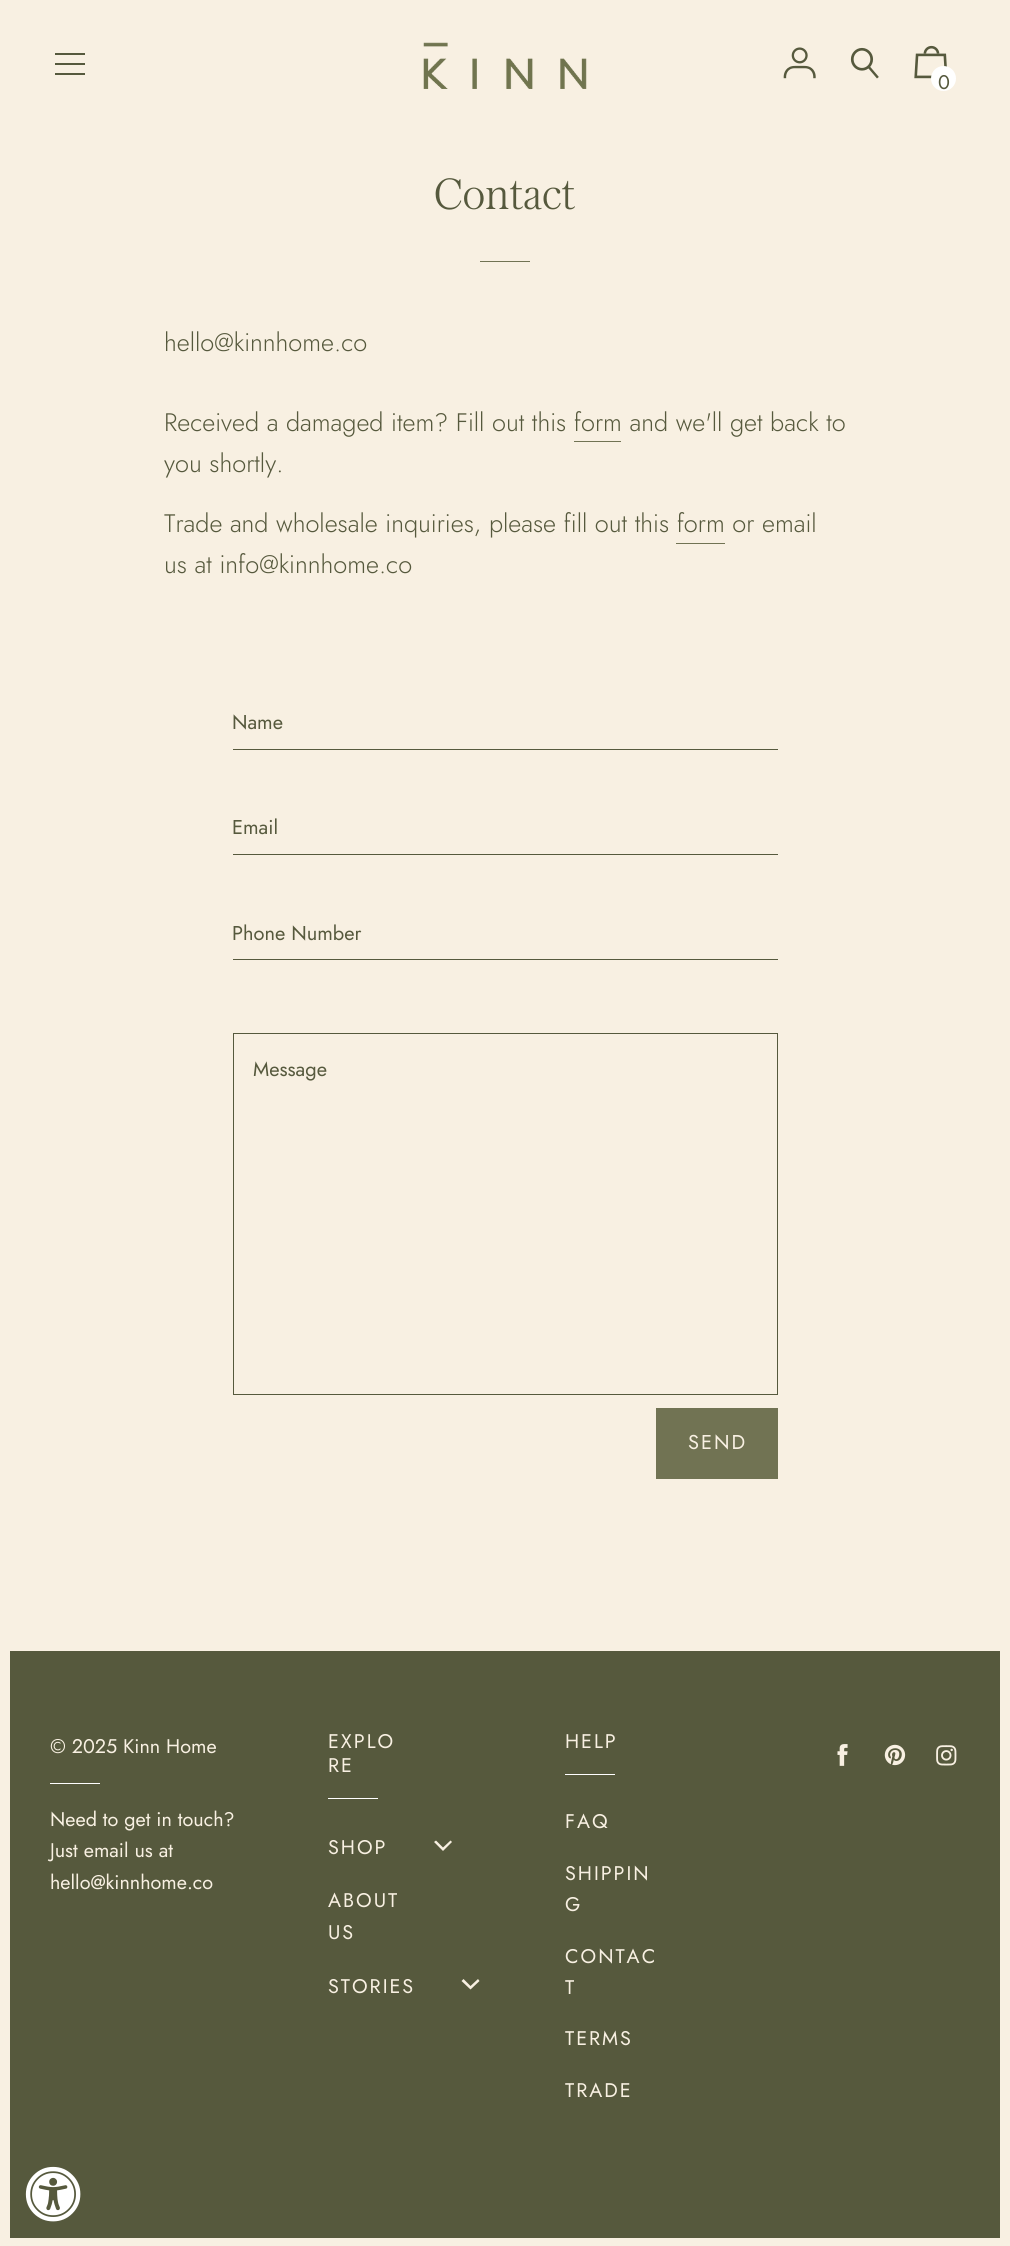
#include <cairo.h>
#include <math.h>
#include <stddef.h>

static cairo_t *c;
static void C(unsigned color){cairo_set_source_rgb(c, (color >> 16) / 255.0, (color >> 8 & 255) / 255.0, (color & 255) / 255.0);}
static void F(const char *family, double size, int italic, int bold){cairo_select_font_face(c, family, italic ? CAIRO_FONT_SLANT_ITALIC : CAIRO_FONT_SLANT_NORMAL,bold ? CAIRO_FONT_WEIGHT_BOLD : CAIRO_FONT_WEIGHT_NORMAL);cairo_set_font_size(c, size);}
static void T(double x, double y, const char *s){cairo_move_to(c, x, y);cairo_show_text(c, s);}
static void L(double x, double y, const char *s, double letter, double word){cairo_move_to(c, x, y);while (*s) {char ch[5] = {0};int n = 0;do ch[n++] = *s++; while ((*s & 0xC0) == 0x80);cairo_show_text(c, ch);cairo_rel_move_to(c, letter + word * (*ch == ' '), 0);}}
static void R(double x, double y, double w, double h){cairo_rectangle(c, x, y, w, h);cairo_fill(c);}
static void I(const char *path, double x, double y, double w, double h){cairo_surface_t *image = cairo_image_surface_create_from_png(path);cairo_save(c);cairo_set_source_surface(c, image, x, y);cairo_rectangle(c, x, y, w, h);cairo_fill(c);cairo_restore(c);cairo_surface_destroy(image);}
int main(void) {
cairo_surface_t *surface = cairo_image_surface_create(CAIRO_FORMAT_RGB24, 1010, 2246);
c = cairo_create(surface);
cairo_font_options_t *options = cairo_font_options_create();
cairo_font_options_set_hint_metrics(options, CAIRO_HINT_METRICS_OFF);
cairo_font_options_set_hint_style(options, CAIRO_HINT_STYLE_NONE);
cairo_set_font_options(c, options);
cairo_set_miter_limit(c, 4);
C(0xf8f0e2);
cairo_paint(c);
C(0x56593d);
R(55,73,30,2);
R(55,63,30,2);
R(55,53,30,2);
I("1.png",423,42,164,47);
I("2.png",783,47,33,32);
I("3.png",850,47,29,32);
I("4.png",914,45,33,34);
C(0xffffff);
cairo_arc(c,943.5,78.5,12.5,0,2 * M_PI);
cairo_fill(c);
F("Jost",19.75,0,0);
C(0x56593d);
T(938,89,"0");
F("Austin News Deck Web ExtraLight",45,0,0);
T(434,209,"Contact");
C(0x717353);
R(480,261,50,1);
F("Jost Light",25.3,0,0);
C(0x56593d);
T(164,351,"hello@kinnhome.co");
T(164,431,"Received a damaged item? Fill out this form and we'll get back to");
C(0x717353);
R(574,441,47,1);
C(0x56593d);
T(164,472,"you shortly.");
T(164,532,"Trade and wholesale inquiries, please fill out this form or email");
C(0x717353);
R(676,543,49,1);
C(0x56593d);
T(164,573,"us at info@kinnhome.co");
R(233,749,545,1);
F("Jost",20,0,0);
T(232,729,"Name");
R(233,854,545,1);
T(232,834,"Email");
R(233,959,545,1);
T(232,940,"Phone Number");
cairo_rectangle(c,233.5,1033.5,544,361);
cairo_set_line_width(c,1);
cairo_stroke(c);
T(253,1076,"Message");
C(0x717353);
R(656,1408,122,71);
C(0xf8f0e2);
L(688,1449,"SEND",2,0);
C(0x56593d);
R(10,1651,990,587);
F("Jost",19.75,0,0);
C(0xf8f0e2);
T(50,1753,"© 2025 Kinn Home");
C(0xffffff);
R(50,1783,50,1);
C(0xf8f0e2);
T(50,1826,"Need to get in touch?");
T(50,1857,"Just email us at");
T(50,1889,"hello@kinnhome.co");
L(328,1748,"EXPLO",2,0);
L(328,1772,"RE",2,0);
C(0xffffff);
R(328,1798,50,1);
C(0xf8f0e2);
L(328,1854,"SHOP",2,0);
cairo_new_path(c);
cairo_move_to(c,450.5,1840.5);
cairo_line_to(c,443,1847.5);
cairo_line_to(c,436,1840.5);
cairo_line_to(c,434,1842);
cairo_line_to(c,443,1851);
cairo_line_to(c,452,1842);
cairo_close_path(c);
cairo_fill(c);
L(328,1907,"ABOUT",2,0);
L(328,1939,"US",2,0);
L(328,1993,"STORIES",2,0);
cairo_new_path(c);
cairo_move_to(c,478,1979);
cairo_line_to(c,470.5,1986);
cairo_line_to(c,463.5,1979);
cairo_line_to(c,461.5,1981);
cairo_line_to(c,470.5,1989.5);
cairo_line_to(c,479.5,1981);
cairo_close_path(c);
cairo_fill(c);
L(565,1748,"HELP",2,0);
C(0xffffff);
R(565,1774,50,1);
C(0xf8f0e2);
L(565,1828,"FAQ",2,0);
L(565,1880,"SHIPPIN",2,0);
L(565,1911,"G",2,0);
L(565,1963,"CONTAC",2,0);
L(565,1994,"T",2,0);
L(565,2045,"TERMS",2,0);
L(565,2097,"TRADE",2,0);
I("5.png",837,1744,11,22);
I("6.png",884,1744,22,22);
I("7.png",936,1745,21,21);
I("8.png",25,2166,56,56);
cairo_surface_write_to_png(surface, "o.png");
cairo_font_options_destroy(options);
cairo_destroy(c);
cairo_surface_destroy(surface);
return 0;
}
